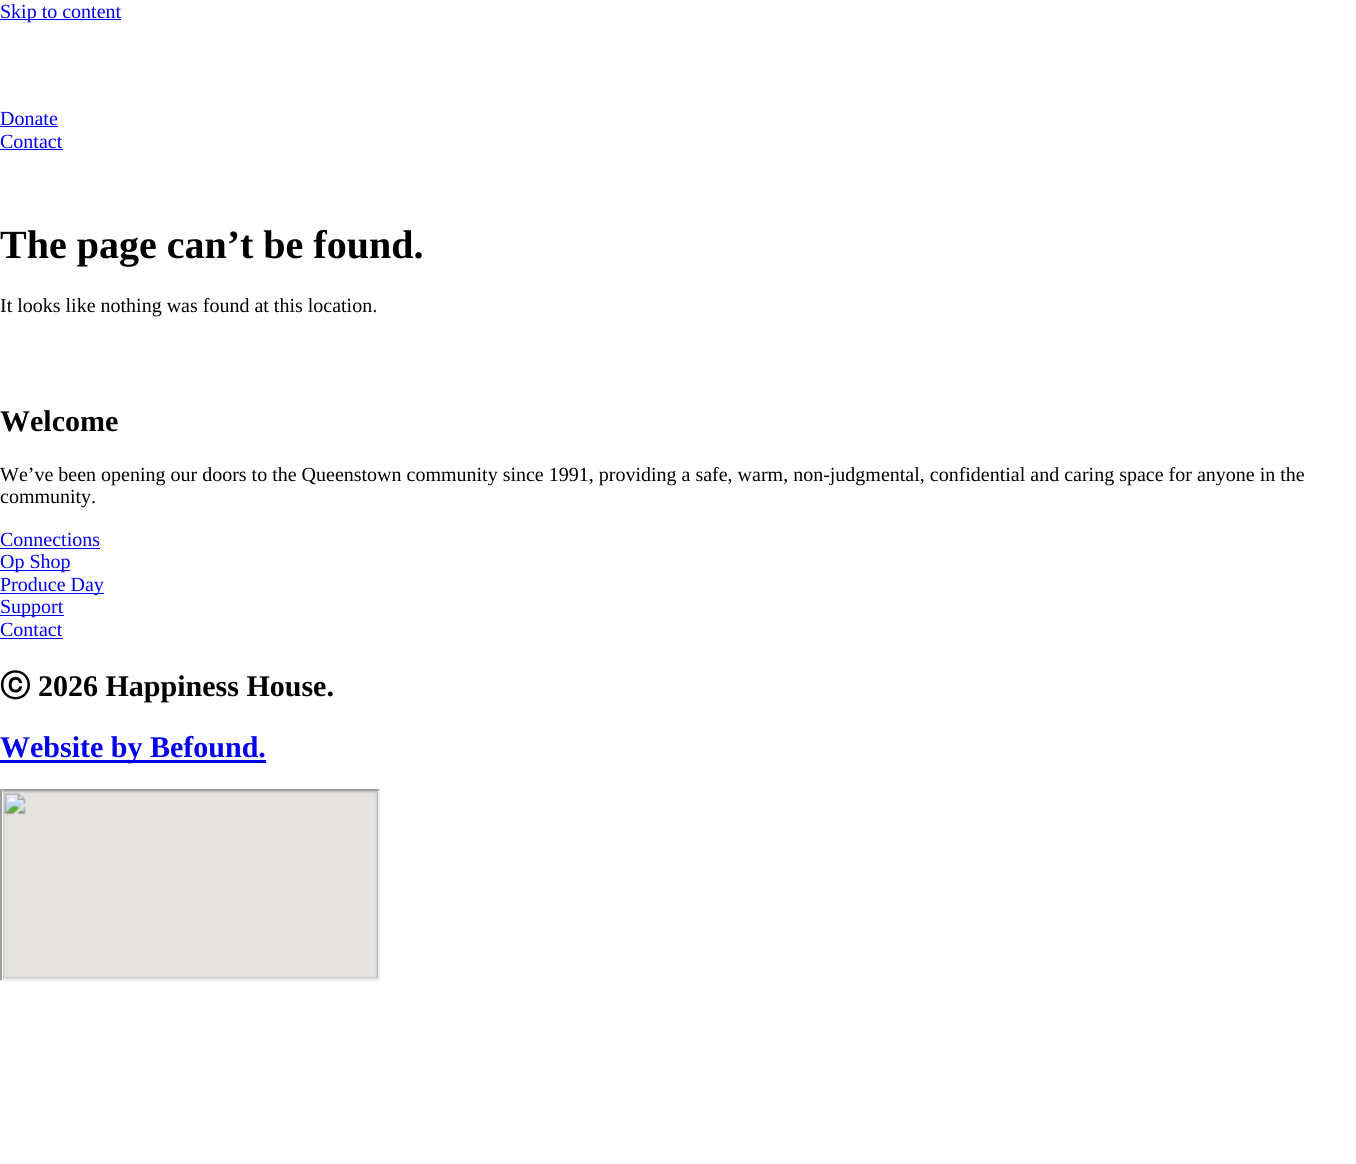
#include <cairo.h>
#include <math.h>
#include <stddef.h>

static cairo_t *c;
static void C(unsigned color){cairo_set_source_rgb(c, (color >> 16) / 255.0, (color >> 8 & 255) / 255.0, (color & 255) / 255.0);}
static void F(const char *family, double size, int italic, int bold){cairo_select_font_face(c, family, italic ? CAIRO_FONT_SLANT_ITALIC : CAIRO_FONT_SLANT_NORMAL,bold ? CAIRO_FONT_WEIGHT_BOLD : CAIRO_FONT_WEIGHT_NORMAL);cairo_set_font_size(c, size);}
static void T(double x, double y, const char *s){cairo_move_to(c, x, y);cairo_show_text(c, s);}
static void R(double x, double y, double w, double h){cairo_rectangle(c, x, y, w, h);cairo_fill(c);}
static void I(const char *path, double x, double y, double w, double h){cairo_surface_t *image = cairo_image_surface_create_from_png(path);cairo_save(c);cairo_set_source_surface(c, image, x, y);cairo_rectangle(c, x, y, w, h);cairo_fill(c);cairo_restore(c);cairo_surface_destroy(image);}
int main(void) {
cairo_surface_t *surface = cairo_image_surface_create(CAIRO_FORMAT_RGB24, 1356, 1164);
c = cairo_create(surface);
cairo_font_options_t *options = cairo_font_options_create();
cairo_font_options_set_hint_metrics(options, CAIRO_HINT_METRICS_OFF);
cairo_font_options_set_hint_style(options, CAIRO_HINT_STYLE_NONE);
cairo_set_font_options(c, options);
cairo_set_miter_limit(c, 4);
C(0xffffff);
cairo_paint(c);
C(0x0000ee);
R(0,19,121,1);
F("Liberation Serif",20,0,0);
T(0,18,"Skip to content");
T(0,125,"Donate");
R(0,126,58,1);
T(0,148,"Contact");
R(0,149,63,1);
F("Liberation Serif",40,0,1);
C(0x000000);
T(0,258,"The page can’t be found.");
F("Liberation Serif",20,0,0);
T(0,312,"It looks like nothing was found at this location.");
F("Liberation Serif",30,0,1);
T(0,431,"Welcome");
F("Liberation Serif",20,0,0);
T(0,481,"We’ve been opening our doors to the Queenstown community since 1991, providing a safe, warm, non-judgmental, confidential and caring space for anyone in the");
T(0,503,"community.");
C(0x0000ee);
T(0,546,"Connections");
R(0,548,100,1);
R(0,570,70,1);
T(0,568,"Op Shop");
R(0,593,104,1);
T(0,591,"Produce Day");
R(0,615,64,1);
T(0,613,"Support");
T(0,636,"Contact");
R(0,638,63,1);
F("WenQuanYi Zen Hei",30,0,1);
C(0x000000);
T(0,696,"ⓒ");
F("Liberation Serif",30,0,1);
T(38,696,"2026 Happiness House.");
C(0x0000ee);
R(0,760,266,3);
T(0,757,"Website by Befound.");
C(0x9f9f9f);
cairo_new_path(c);
cairo_move_to(c,0,789);
cairo_line_to(c,380,789);
cairo_line_to(c,378,791);
cairo_line_to(c,2,791);
cairo_close_path(c);
cairo_fill(c);
C(0xeeeeee);
cairo_new_path(c);
cairo_move_to(c,380,789);
cairo_line_to(c,380,981);
cairo_line_to(c,378,979);
cairo_line_to(c,378,791);
cairo_close_path(c);
cairo_fill(c);
cairo_new_path(c);
cairo_move_to(c,380,981);
cairo_line_to(c,0,981);
cairo_line_to(c,2,979);
cairo_line_to(c,378,979);
cairo_close_path(c);
cairo_fill(c);
C(0x9f9f9f);
cairo_new_path(c);
cairo_move_to(c,0,981);
cairo_line_to(c,0,789);
cairo_line_to(c,2,791);
cairo_line_to(c,2,979);
cairo_close_path(c);
cairo_fill(c);
I("1.png",2,791,376,188);
cairo_surface_write_to_png(surface, "o.png");
cairo_font_options_destroy(options);
cairo_destroy(c);
cairo_surface_destroy(surface);
return 0;
}
